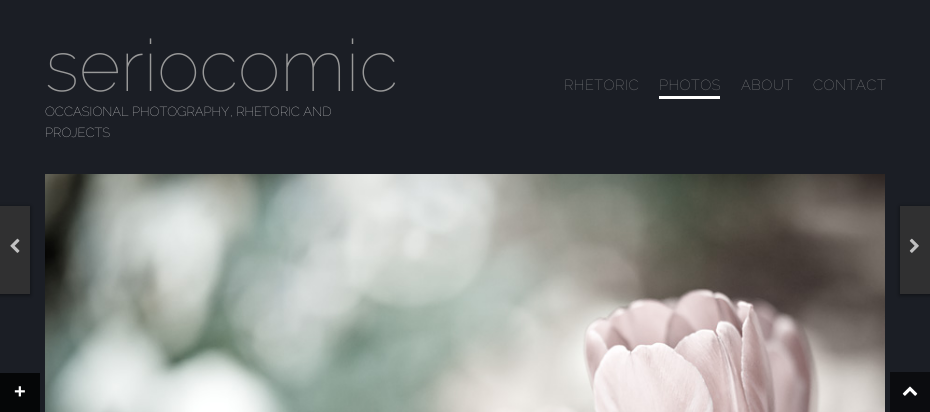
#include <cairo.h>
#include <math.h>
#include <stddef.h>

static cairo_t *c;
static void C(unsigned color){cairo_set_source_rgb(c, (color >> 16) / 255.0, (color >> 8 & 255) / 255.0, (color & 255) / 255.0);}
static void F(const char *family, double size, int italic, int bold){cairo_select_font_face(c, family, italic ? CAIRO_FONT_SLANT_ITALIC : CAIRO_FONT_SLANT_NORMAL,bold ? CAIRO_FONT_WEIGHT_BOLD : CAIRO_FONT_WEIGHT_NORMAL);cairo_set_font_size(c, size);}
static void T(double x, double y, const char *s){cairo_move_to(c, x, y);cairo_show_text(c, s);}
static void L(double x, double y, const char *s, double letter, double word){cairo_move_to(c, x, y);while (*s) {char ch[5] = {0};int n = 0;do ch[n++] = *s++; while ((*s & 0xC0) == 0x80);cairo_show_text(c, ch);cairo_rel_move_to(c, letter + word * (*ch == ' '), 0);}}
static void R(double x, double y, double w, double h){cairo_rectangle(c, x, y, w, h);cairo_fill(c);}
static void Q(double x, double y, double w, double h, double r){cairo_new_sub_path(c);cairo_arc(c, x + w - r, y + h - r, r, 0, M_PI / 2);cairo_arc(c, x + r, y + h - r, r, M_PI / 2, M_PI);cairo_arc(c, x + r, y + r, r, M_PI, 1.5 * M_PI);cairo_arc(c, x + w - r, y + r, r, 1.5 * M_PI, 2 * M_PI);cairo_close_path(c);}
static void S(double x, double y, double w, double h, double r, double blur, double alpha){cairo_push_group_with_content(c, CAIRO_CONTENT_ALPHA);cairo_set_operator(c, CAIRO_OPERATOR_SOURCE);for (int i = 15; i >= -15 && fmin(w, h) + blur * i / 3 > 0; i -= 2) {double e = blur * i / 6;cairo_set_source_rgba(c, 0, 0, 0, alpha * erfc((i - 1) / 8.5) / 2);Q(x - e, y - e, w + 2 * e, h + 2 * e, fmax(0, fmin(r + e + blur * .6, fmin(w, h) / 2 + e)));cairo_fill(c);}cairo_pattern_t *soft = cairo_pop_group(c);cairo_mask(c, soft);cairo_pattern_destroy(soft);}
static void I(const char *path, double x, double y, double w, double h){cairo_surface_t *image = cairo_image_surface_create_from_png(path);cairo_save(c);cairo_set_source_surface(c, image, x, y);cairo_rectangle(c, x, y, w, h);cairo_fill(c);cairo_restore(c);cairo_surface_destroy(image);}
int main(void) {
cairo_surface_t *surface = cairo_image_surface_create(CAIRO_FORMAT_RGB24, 930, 412);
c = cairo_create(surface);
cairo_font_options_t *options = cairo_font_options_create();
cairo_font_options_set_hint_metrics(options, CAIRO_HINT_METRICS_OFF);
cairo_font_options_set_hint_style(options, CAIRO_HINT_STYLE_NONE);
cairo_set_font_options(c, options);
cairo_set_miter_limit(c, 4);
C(0x1b1e25);
cairo_paint(c);
F("Raleway Thin",72,0,0);
C(0x999999);
T(45,91,"seriocomic");
F("Raleway Thin",13,0,0);
C(0xeeeeee);
T(45,116,"OCCASIONAL PHOTOGRAPHY, RHETORIC AND");
T(45,137,"PROJECTS");
F("Raleway Thin",14.5,0,0);
C(0x999999);
L(564,90,"RHETORIC",.5,0);
C(0xffffff);
R(659,96,61,3);
C(0x999999);
L(659,90,"PHOTOS",.5,0);
L(741,90,"ABOUT",.5,0);
L(813,90,"CONTACT",.5,0);
I("1.png",45,174,840,238);
C(0x000000);
S(-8,207,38,88,0,2.5,.5);
C(0x303031);
R(0,206,30,88);
I("2.png",10,238,10,15);
C(0x000000);
S(900,207,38,88,0,2.5,.5);
C(0x303031);
R(900,206,30,88);
I("3.png",909,238,10,15);
C(0x050607);
R(0,373,40,39);
F("Liberation Sans",20,0,1);
C(0xffffff);
T(14,398,"+");
C(0x0b0c0f);
R(890,372,40,40);
I("4.png",902,386,16,10);
cairo_surface_write_to_png(surface, "o.png");
cairo_font_options_destroy(options);
cairo_destroy(c);
cairo_surface_destroy(surface);
return 0;
}
